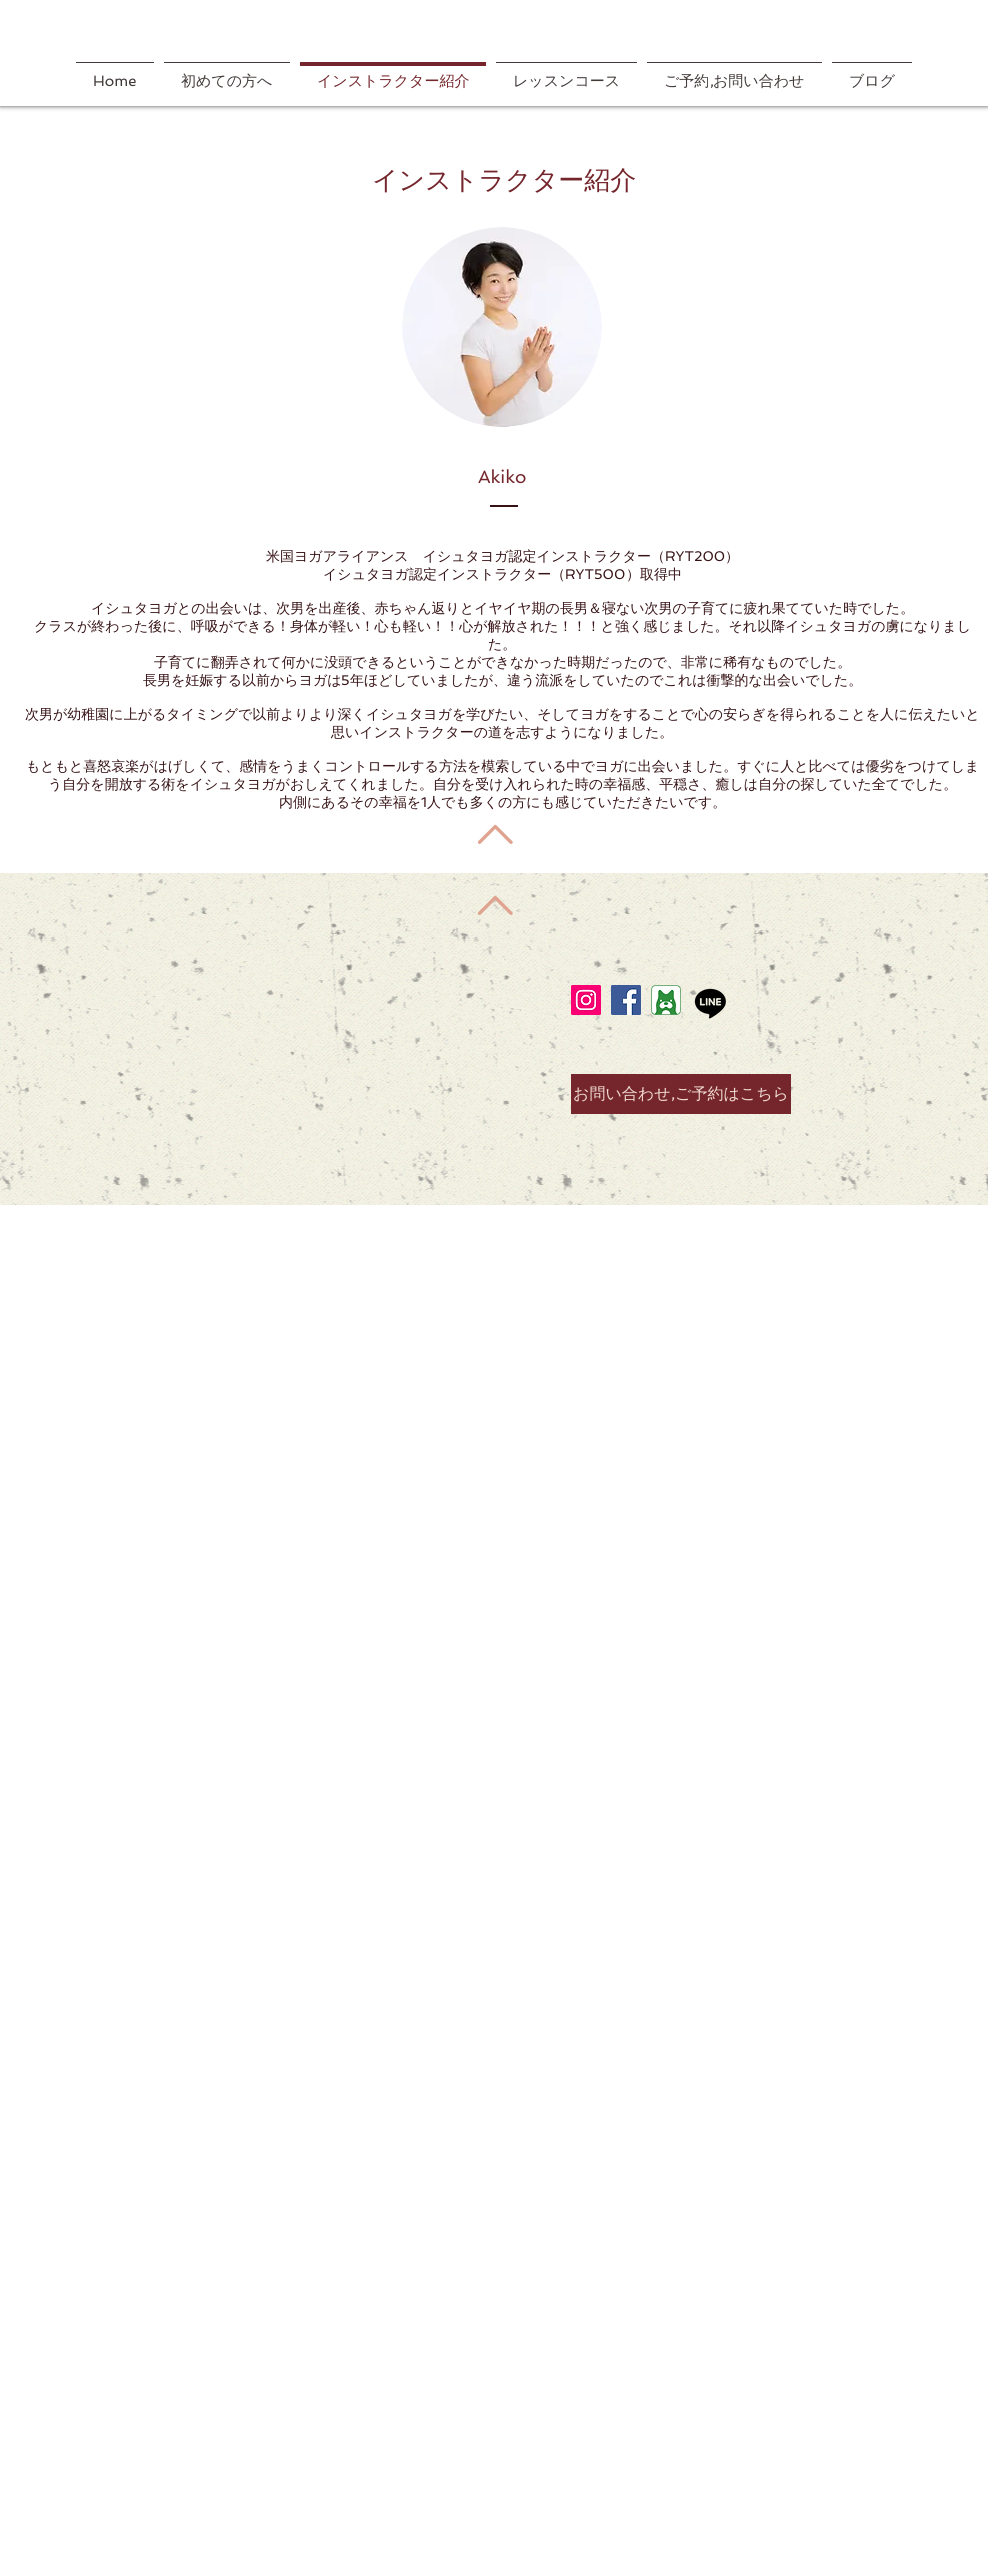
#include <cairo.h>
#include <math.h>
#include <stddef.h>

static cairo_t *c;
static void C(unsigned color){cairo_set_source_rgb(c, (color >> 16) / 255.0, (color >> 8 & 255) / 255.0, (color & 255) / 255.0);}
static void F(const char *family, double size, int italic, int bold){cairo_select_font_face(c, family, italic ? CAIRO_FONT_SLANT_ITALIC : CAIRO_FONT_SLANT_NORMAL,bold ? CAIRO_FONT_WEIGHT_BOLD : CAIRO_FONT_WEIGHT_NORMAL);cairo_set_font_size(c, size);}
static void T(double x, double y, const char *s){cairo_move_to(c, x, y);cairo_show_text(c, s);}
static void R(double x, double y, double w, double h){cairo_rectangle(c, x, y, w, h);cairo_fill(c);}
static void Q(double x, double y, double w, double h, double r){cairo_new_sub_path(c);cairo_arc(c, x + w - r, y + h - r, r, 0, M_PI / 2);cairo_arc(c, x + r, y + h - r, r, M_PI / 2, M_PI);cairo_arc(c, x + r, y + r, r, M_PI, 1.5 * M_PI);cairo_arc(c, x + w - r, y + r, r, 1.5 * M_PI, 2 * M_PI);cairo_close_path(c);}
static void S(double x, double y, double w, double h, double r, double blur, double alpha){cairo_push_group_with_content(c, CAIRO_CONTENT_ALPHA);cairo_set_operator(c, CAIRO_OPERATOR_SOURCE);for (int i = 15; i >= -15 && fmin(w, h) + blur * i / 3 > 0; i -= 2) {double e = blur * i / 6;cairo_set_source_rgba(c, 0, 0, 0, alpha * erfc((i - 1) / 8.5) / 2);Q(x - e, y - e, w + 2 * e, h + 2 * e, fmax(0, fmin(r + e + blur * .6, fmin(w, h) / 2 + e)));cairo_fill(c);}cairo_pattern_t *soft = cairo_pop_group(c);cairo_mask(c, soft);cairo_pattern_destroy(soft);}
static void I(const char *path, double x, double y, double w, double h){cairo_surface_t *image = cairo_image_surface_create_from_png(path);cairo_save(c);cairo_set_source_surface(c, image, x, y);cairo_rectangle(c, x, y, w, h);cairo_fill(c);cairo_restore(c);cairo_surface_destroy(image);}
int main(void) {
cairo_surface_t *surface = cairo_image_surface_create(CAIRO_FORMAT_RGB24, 988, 2555);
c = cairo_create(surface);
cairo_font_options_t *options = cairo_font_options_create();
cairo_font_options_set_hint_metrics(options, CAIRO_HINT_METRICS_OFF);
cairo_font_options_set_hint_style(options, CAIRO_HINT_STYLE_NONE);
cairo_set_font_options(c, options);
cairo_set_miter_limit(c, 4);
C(0xffffff);
cairo_paint(c);
C(0x000000);
S(0,0,988,106,0,2.5,.7);
C(0xffffff);
R(0,0,988,106);
C(0x413a38);
R(76,62,78,1);
F("Spinnaker",15,0,0);
T(93,86,"Home");
R(164,62,126,1);
F("WenQuanYi Zen Hei Medium",15,0,0);
T(181,86,"初めての方へ");
C(0x74262c);
R(300,62,186,4);
T(317,86,"インストラクター紹介");
C(0x413a38);
R(496,62,141,1);
T(513,86,"レッスンコース");
R(647,62,175,1);
T(664,86,"ご予約");
F("Spinnaker",15,0,0);
T(710,86,",");
F("WenQuanYi Zen Hei Medium",15,0,0);
T(713,86,"お問い合わせ");
R(832,62,80,1);
T(849,86,"ブログ");
F("WenQuanYi Zen Hei Medium",26,0,0);
C(0x74262c);
T(372,189,"インストラクター紹介");
I("1.png",402,227,200,200);
F("Spinnaker",18,0,0);
T(478,483,"Akiko");
C(0x361215);
R(490,505,28,2);
F("WenQuanYi Zen Hei Medium",14,0,0);
T(266,561,"米国ヨガアライアンス　イシュタヨガ認定インストラクター（");
F("Spinnaker",14,0,0);
T(665,561,"RYT200");
F("WenQuanYi Zen Hei Medium",14,0,0);
T(725,561,"）");
T(323,579,"イシュタヨガ認定インストラクター（");
F("Spinnaker",14,0,0);
T(565,579,"RYT500");
F("WenQuanYi Zen Hei Medium",14,0,0);
T(626,579,"）取得中");
T(91,613,"イシュタヨガとの出会いは、次男を出産後、赤ちゃん返りとイヤイヤ期の長男＆寝ない次男の子育てに疲れ果てていた時でした。");
T(34,631,"クラスが終わった後に、呼吸ができる！身体が軽い！心も軽い！！心が解放された！！！と強く感じました。それ以降イシュタヨガの虜になりまし");
T(488,649,"た。");
T(154,667,"子育てに翻弄されて何かに没頭できるということができなかった時期だったので、非常に稀有なものでした。");
T(143,685,"長男を妊娠する以前からヨガは");
F("Spinnaker",14,0,0);
T(341,685,"5");
F("WenQuanYi Zen Hei Medium",14,0,0);
T(350,685,"年ほどしていましたが、違う流派をしていたのでこれは衝撃的な出会いでした。");
T(25,719,"次男が幼稚園に上がるタイミングで以前よりより深くイシュタヨガを学びたい、そしてヨガをすることで心の安らぎを得られることを人に伝えたいと");
T(331,737,"思いインストラクターの道を志すようになりました。");
T(26,771,"もともと喜怒哀楽がはげしくて、感情をうまくコントロールする方法を模索している中でヨガに出会いました。すぐに人と比べては優劣をつけてしま");
T(48,789,"う自分を開放する術をイシュタヨガがおしえてくれました。自分を受け入れられた時の幸福感、平穏さ、癒しは自分の探していた全てでした。");
T(279,807,"内側にあるその幸福を");
F("Spinnaker",14,0,0);
T(421,807,"1");
F("WenQuanYi Zen Hei Medium",14,0,0);
T(427,807,"人でも多くの方にも感じていただきたいです。");
I("2.png",477,824,36,21);
C(0xf2f0e1);
R(0,873,988,332);
I("4.png",0,873,988,332);
I("3.png",694,988,32,31);
I("5.png",477,895,36,20);
I("6.png",571,985,30,30);
I("7.png",611,985,30,30);
I("8.png",651,985,30,30);
C(0x74262c);
R(571,1074,220,40);
F("WenQuanYi Zen Hei Medium",16,0,0);
C(0xf1dbd3);
T(573,1099,"お問い合わせ");
F("Spinnaker",16,0,0);
T(671,1099,",");
F("WenQuanYi Zen Hei Medium",16,0,0);
T(675,1099,"ご予約はこちら");
cairo_surface_write_to_png(surface, "o.png");
cairo_font_options_destroy(options);
cairo_destroy(c);
cairo_surface_destroy(surface);
return 0;
}
